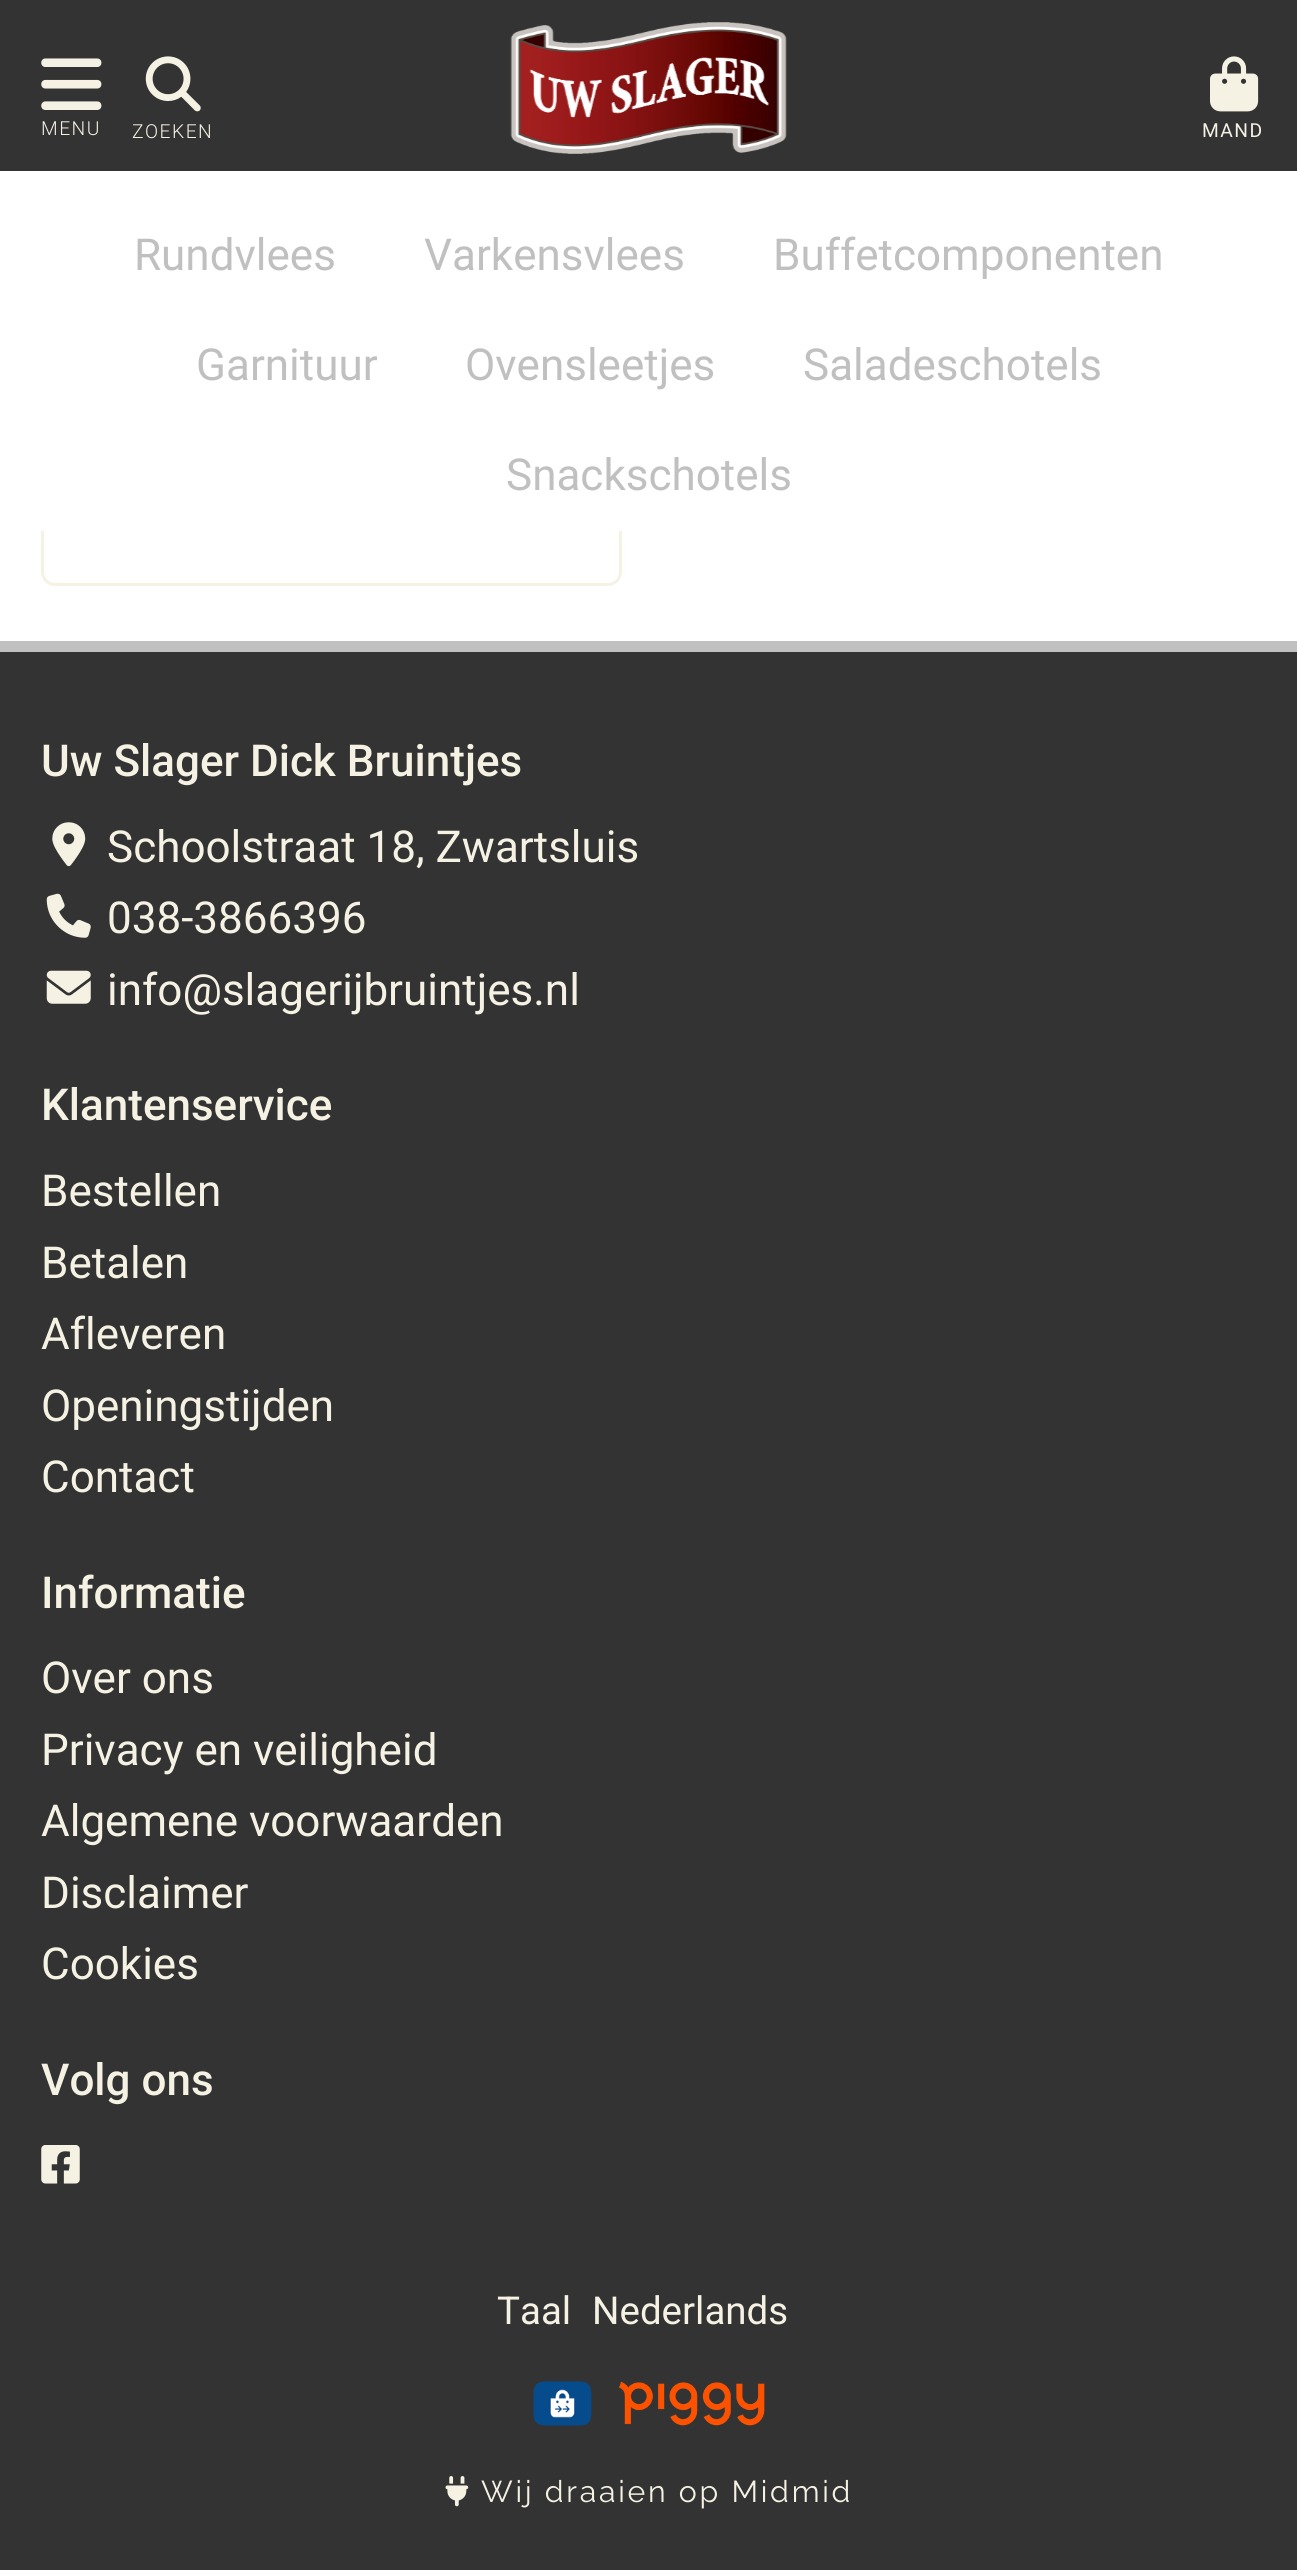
#include <cairo.h>
#include <math.h>
#include <stddef.h>

static cairo_t *c;
static void C(unsigned color){cairo_set_source_rgb(c, (color >> 16) / 255.0, (color >> 8 & 255) / 255.0, (color & 255) / 255.0);}
static void F(const char *family, double size, int italic, int bold){cairo_select_font_face(c, family, italic ? CAIRO_FONT_SLANT_ITALIC : CAIRO_FONT_SLANT_NORMAL,bold ? CAIRO_FONT_WEIGHT_BOLD : CAIRO_FONT_WEIGHT_NORMAL);cairo_set_font_size(c, size);}
static void T(double x, double y, const char *s){cairo_move_to(c, x, y);cairo_show_text(c, s);}
static void L(double x, double y, const char *s, double letter, double word){cairo_move_to(c, x, y);while (*s) {char ch[5] = {0};int n = 0;do ch[n++] = *s++; while ((*s & 0xC0) == 0x80);cairo_show_text(c, ch);cairo_rel_move_to(c, letter + word * (*ch == ' '), 0);}}
static void R(double x, double y, double w, double h){cairo_rectangle(c, x, y, w, h);cairo_fill(c);}
static void Q(double x, double y, double w, double h, double r){cairo_new_sub_path(c);cairo_arc(c, x + w - r, y + h - r, r, 0, M_PI / 2);cairo_arc(c, x + r, y + h - r, r, M_PI / 2, M_PI);cairo_arc(c, x + r, y + r, r, M_PI, 1.5 * M_PI);cairo_arc(c, x + w - r, y + r, r, 1.5 * M_PI, 2 * M_PI);cairo_close_path(c);}
static void I(const char *path, double x, double y, double w, double h){cairo_surface_t *image = cairo_image_surface_create_from_png(path);cairo_save(c);cairo_set_source_surface(c, image, x, y);cairo_rectangle(c, x, y, w, h);cairo_fill(c);cairo_restore(c);cairo_surface_destroy(image);}
int main(void) {
cairo_surface_t *surface = cairo_image_surface_create(CAIRO_FORMAT_RGB24, 1297, 2570);
c = cairo_create(surface);
cairo_font_options_t *options = cairo_font_options_create();
cairo_font_options_set_hint_metrics(options, CAIRO_HINT_METRICS_OFF);
cairo_font_options_set_hint_style(options, CAIRO_HINT_STYLE_NONE);
cairo_set_font_options(c, options);
cairo_set_miter_limit(c, 4);
C(0xffffff);
cairo_paint(c);
Q(42.5,103.5,578,481,12.5);
C(0xf5f2e4);
cairo_set_line_width(c,3);
cairo_stroke(c);
C(0x333333);
R(0,0,1297,171);
I("1.png",41,58,61,52);
F("Roboto Light",19.25,0,0);
C(0xf5f2e4);
L(41,135,"MENU",1.5,0);
I("2.png",145,56,56,56);
L(132,138,"ZOEKEN",1.5,0);
I("3.png",510,22,277,132);
I("4.png",1210,56,49,56);
F("Roboto",19.25,0,0);
L(1202,137,"MAND",1.5,0);
C(0xffffff);
R(41,171,581,360);
F("Roboto",44,0,0);
C(0xc0c0c0);
T(134,270,"Rundvlees");
T(424,270,"Varkensvlees");
T(773,270,"Buffetcomponenten");
T(196,380,"Garnituur");
T(465,380,"Ovensleetjes");
T(803,380,"Saladeschotels");
T(506,490,"Snackschotels");
C(0x333333);
R(0,652,1297,1918);
C(0xc0c0c0);
R(0,641,1297,11);
F("Roboto Medium",44,0,0);
C(0xf5f2e4);
T(41,776,"Uw Slager Dick Bruintjes");
I("5.png",52,822,34,45);
F("Roboto",44,0,0);
T(107,862,"Schoolstraat 18, Zwartsluis");
I("6.png",46,893,45,45);
T(107,933,"038-3866396");
I("7.png",46,970,45,34);
T(107,1005,"info@slagerijbruintjes.nl");
F("Roboto Medium",44,0,0);
T(41,1120,"Klantenservice");
F("Roboto",44,0,0);
T(41,1206,"Bestellen");
T(41,1278,"Betalen");
T(41,1349,"Afleveren");
T(41,1421,"Openingstijden");
T(41,1492,"Contact");
F("Roboto Medium",44,0,0);
T(41,1608,"Informatie");
F("Roboto",44,0,0);
T(41,1693,"Over ons");
T(41,1765,"Privacy en veiligheid");
T(41,1836,"Algemene voorwaarden");
T(41,1908,"Disclaimer");
T(41,1979,"Cookies");
F("Roboto Medium",44,0,0);
T(41,2095,"Volg ons");
I("8.png",41,2145,39,39);
F("Roboto",38.5,0,0);
T(497,2324,"Taal");
T(592,2324,"Nederlands");
I("9.png",533,2381,59,45);
I("10.png",618,2381,147,45);
I("11.png",445,2476,24,31);
F("Raleway",30.25,0,0);
L(481,2502,"Wij draaien op Midmid",2.75,0);
cairo_surface_write_to_png(surface, "o.png");
cairo_font_options_destroy(options);
cairo_destroy(c);
cairo_surface_destroy(surface);
return 0;
}
